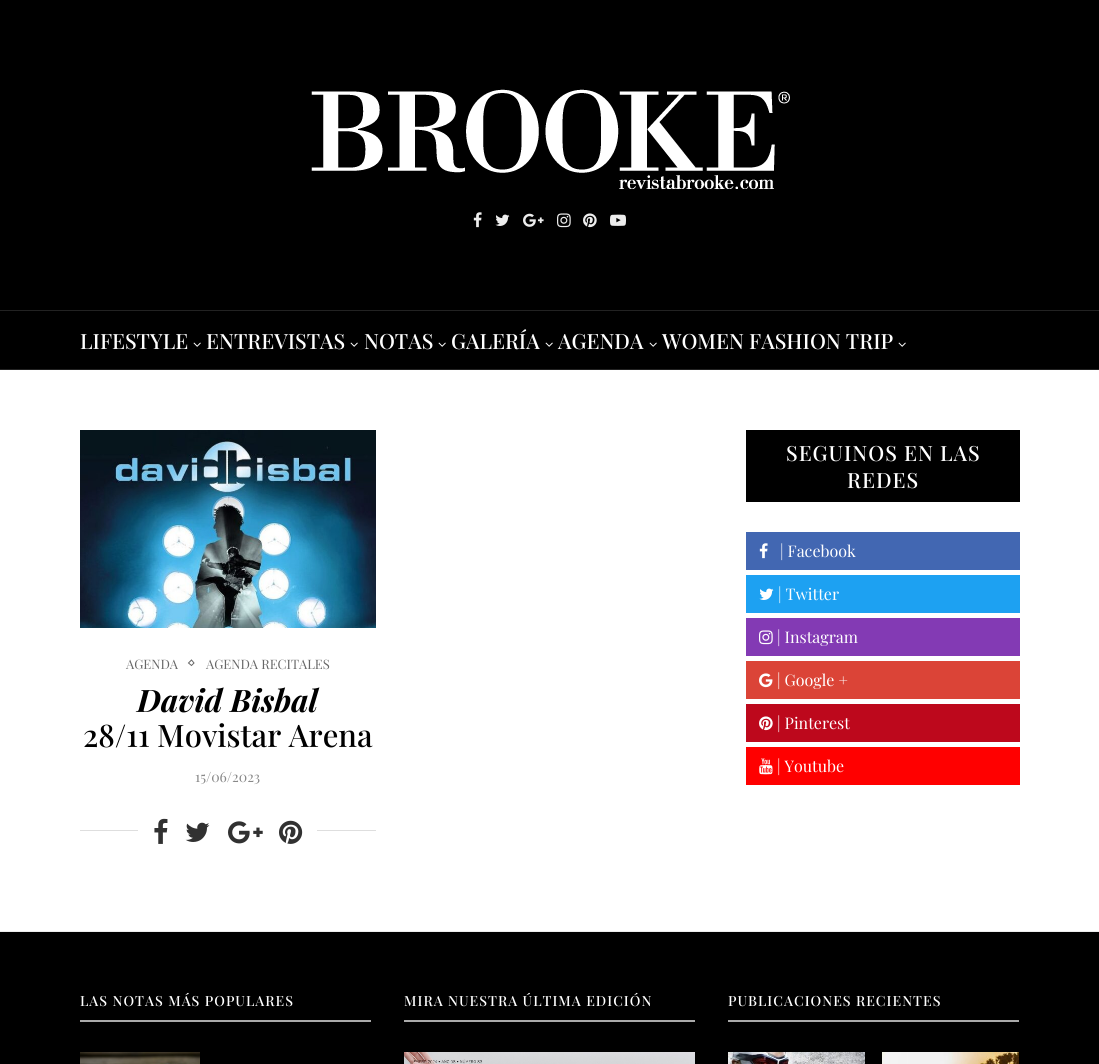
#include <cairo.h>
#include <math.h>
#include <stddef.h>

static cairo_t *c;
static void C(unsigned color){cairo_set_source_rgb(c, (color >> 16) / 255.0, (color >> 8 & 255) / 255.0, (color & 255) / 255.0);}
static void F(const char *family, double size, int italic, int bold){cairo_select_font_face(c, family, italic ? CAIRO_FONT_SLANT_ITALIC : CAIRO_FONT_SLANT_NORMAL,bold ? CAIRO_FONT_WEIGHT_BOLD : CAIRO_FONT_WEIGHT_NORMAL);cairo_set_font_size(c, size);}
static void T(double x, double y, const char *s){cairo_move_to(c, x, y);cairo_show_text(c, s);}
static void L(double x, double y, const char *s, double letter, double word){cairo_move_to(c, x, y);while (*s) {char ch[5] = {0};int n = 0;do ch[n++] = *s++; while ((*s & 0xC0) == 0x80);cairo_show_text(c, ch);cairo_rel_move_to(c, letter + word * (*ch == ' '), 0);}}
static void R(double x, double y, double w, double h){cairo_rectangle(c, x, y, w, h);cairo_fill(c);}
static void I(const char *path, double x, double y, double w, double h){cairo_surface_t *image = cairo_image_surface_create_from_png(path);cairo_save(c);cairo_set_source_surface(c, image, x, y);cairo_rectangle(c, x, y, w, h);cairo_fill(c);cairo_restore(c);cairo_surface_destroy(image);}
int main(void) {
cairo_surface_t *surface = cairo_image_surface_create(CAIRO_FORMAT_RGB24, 1099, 1064);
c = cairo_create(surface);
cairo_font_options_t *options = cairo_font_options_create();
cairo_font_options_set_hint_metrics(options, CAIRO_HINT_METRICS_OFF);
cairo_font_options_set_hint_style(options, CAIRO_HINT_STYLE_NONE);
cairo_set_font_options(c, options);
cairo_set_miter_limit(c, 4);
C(0xffffff);
cairo_paint(c);
C(0x000000);
R(0,0,1099,310);
I("1.png",311,89,479,100);
I("2.png",473,212,9,16);
I("3.png",495,214,15,12);
I("4.png",523,213,21,14);
I("5.png",557,213,14,15);
I("6.png",583,213,14,15);
I("7.png",610,214,16,12);
R(0,311,1099,58);
C(0x222222);
R(0,310,1099,1);
R(0,369,1099,1);
F("Playfair Display Medium",21,0,0);
C(0xffffff);
T(80,349,"LIFESTYLE");
I("8.png",193,342,8,5);
T(206,349,"ENTREVISTAS");
I("8.png",350,342,8,5);
T(364,349,"NOTAS");
I("8.png",438,342,8,5);
T(451,349,"GALERÍA");
I("8.png",545,342,8,5);
T(558,349,"AGENDA");
I("8.png",649,342,8,5);
T(662,349,"WOMEN FASHION TRIP");
I("8.png",898,342,8,5);
I("9.png",80,430,296,198);
F("Playfair Display",13,0,0);
C(0x666666);
T(126,669,"AGENDA");
cairo_new_path(c);
cairo_move_to(c,191.5,660);
cairo_line_to(c,194,663);
cairo_line_to(c,191.5,665.5);
cairo_line_to(c,188.5,663);
cairo_close_path(c);
cairo_set_line_width(c,1);
cairo_stroke(c);
T(206,669,"AGENDA RECITALES");
F("Playfair Display",31,1,1);
C(0x000000);
T(137,712,"David Bisbal");
F("Playfair Display Medium",31,0,0);
T(83,747,"28/11 Movistar Arena");
F("Playfair Display",14,0,0);
C(0x888888);
T(195,782,"15/06/2023");
C(0xdedede);
R(80,830,296,1);
C(0xffffff);
R(138,830,179,1);
I("10.png",154,818,14,26);
I("11.png",185,822,25,20);
I("12.png",228,821,35,23);
I("13.png",279,820,24,24);
C(0x000000);
R(746,430,274,72);
F("Playfair Display Medium",21,0,0);
C(0xffffff);
L(786,461,"SEGUINOS EN LAS",1,0);
L(847,488,"REDES",1,0);
C(0x4267b2);
R(746,532,274,38);
I("14.png",759,543,9,16);
F("Playfair Display",16,0,0);
C(0xffffff);
T(780,557,"| Facebook");
C(0x1da1f2);
R(746,575,274,38);
I("15.png",759,588,15,12);
C(0xffffff);
T(778,600,"| Twitter");
C(0x833ab4);
R(746,618,274,38);
I("16.png",759,630,14,15);
C(0xffffff);
T(777,643,"| Instagram");
C(0xdb4437);
R(746,661,274,38);
I("17.png",759,673,14,15);
C(0xffffff);
T(777,686,"| Google +");
C(0xbd081c);
R(746,704,274,38);
I("18.png",759,716,14,15);
C(0xffffff);
T(777,729,"| Pinterest");
C(0xff0000);
R(746,747,274,38);
I("19.png",759,758,14,17);
C(0xffffff);
T(777,772,"| Youtube");
C(0x000000);
R(0,932,1099,132);
C(0xececec);
R(0,931,1099,1);
C(0xaaaaaa);
R(80,1020,291,2);
F("Playfair Display Medium",14,0,0);
C(0xffffff);
L(80,1006,"LAS NOTAS MÁS POPULARES",1,0);
I("20.png",80,1052,120,12);
C(0xaaaaaa);
R(404,1020,291,2);
C(0xffffff);
L(404,1006,"MIRA NUESTRA ÚLTIMA EDICIÓN",1,0);
I("21.png",404,1052,291,12);
C(0xaaaaaa);
R(728,1020,291,2);
C(0xffffff);
L(728,1006,"PUBLICACIONES RECIENTES",1,0);
I("22.png",728,1052,137,12);
I("23.png",882,1052,137,12);
cairo_surface_write_to_png(surface, "o.png");
cairo_font_options_destroy(options);
cairo_destroy(c);
cairo_surface_destroy(surface);
return 0;
}
